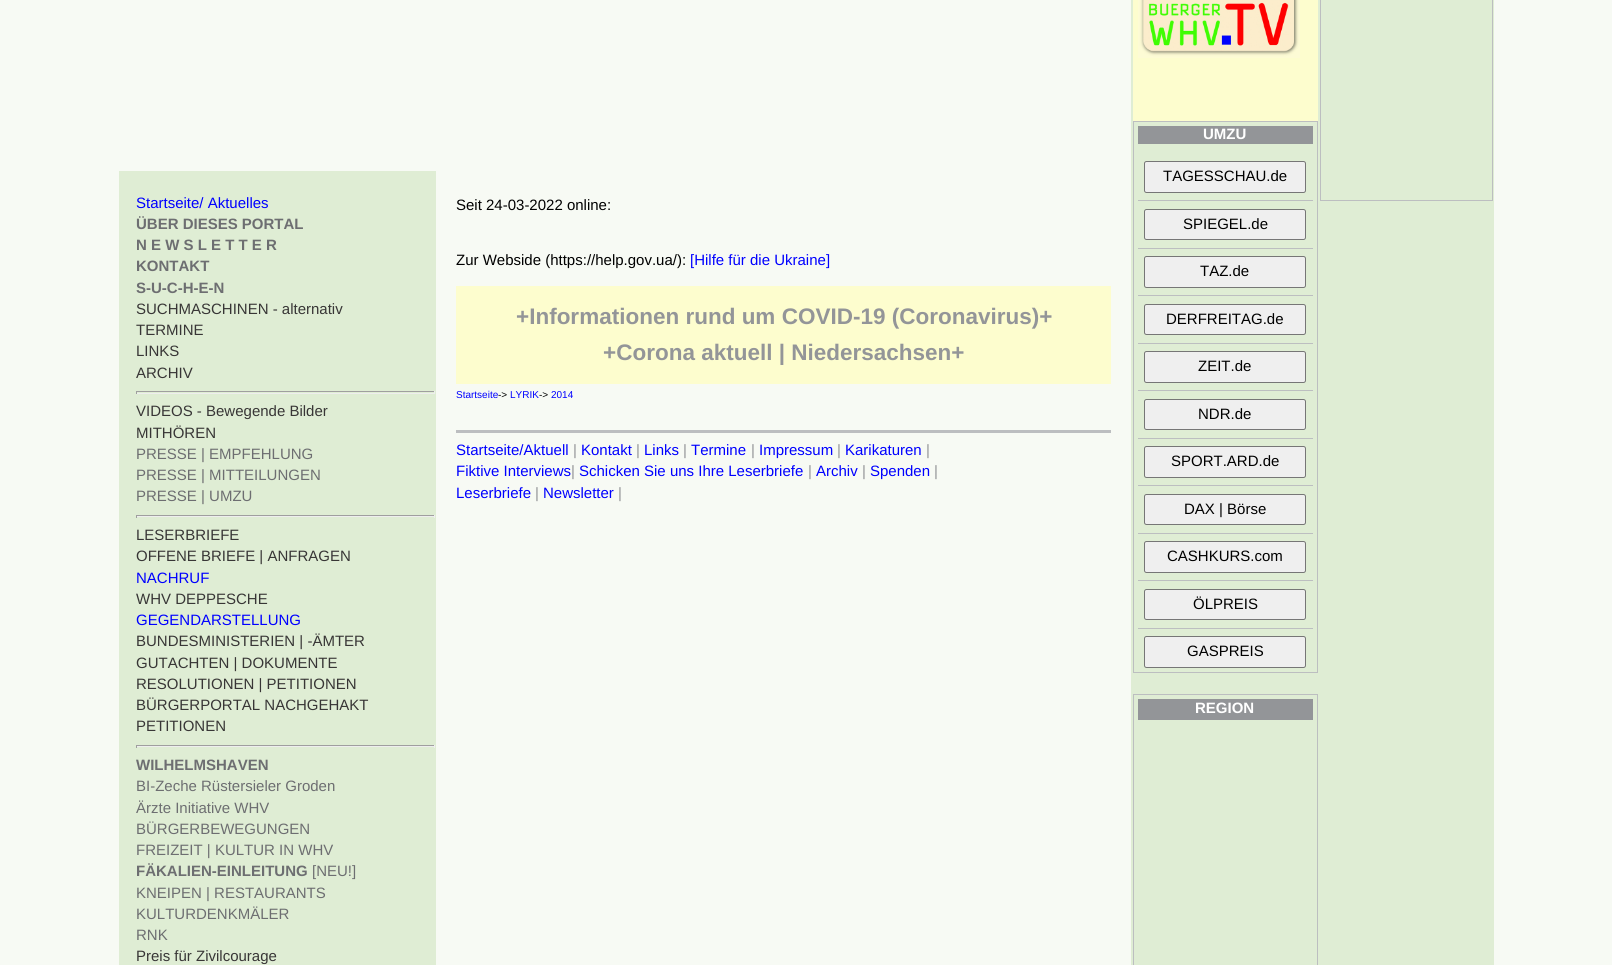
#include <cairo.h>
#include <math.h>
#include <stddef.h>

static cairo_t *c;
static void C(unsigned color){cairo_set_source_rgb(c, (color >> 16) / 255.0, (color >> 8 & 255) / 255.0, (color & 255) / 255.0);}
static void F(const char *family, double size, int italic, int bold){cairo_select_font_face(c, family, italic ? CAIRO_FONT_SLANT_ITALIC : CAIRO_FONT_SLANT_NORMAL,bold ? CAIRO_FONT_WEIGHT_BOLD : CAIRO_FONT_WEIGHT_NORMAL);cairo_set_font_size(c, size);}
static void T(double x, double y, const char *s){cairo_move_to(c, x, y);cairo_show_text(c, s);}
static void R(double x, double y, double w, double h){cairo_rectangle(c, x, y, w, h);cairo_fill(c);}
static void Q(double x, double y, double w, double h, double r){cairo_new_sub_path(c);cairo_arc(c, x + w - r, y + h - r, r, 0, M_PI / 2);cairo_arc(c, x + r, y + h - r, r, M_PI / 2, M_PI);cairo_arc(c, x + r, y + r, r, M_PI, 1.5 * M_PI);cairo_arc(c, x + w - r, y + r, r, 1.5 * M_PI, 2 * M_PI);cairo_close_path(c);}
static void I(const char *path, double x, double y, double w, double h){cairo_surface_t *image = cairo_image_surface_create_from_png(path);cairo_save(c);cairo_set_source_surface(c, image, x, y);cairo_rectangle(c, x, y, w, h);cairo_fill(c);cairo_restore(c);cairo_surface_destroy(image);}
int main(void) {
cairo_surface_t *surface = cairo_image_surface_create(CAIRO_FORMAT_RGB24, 1612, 965);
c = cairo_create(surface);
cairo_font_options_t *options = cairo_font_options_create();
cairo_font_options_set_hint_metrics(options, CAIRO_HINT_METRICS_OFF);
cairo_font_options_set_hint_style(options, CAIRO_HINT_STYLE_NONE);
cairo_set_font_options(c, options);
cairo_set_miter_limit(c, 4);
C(0xf7faf4);
cairo_paint(c);
C(0xdfedd4);
R(119,171,317,794);
R(1131,0,363,965);
cairo_rectangle(c,1320.5,-.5,172,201);
C(0xbcbec0);
cairo_set_line_width(c,1);
cairo_stroke(c);
C(0xfdfdce);
R(1133,0,185,121);
I("1.png",1138,0,162,58);
cairo_rectangle(c,1133.5,121.5,184,551);
C(0xbcbec0);
cairo_stroke(c);
C(0x939598);
R(1138,126,175,18);
F("Liberation Sans",15,0,1);
C(0xffffff);
T(1203,139,"UMZU");
C(0xefefef);
Q(1144.5,161.5,161,31,2);
cairo_fill_preserve(c);
C(0x767676);
cairo_stroke(c);
F("Liberation Sans",15,0,0);
C(0x000000);
T(1163,181,"TAGESSCHAU.de");
C(0xbcbec0);
R(1138,200,175,1);
C(0xefefef);
Q(1144.5,209.5,161,30,2);
cairo_fill_preserve(c);
C(0x767676);
cairo_stroke(c);
C(0x000000);
T(1183,229,"SPIEGEL.de");
C(0xbcbec0);
R(1138,248,175,1);
C(0xefefef);
Q(1144.5,256.5,161,31,2);
cairo_fill_preserve(c);
C(0x767676);
cairo_stroke(c);
C(0x000000);
T(1200,276,"TAZ.de");
C(0xbcbec0);
R(1138,295,175,1);
C(0xefefef);
Q(1144.5,304.5,161,30,2);
cairo_fill_preserve(c);
C(0x767676);
cairo_stroke(c);
C(0x000000);
T(1166,324,"DERFREITAG.de");
C(0xbcbec0);
R(1138,343,175,1);
C(0xefefef);
Q(1144.5,351.5,161,31,2);
cairo_fill_preserve(c);
C(0x767676);
cairo_stroke(c);
C(0x000000);
T(1198,371,"ZEIT.de");
C(0xbcbec0);
R(1138,390,175,1);
C(0xefefef);
Q(1144.5,399.5,161,30,2);
cairo_fill_preserve(c);
C(0x767676);
cairo_stroke(c);
C(0x000000);
T(1198,419,"NDR.de");
C(0xbcbec0);
R(1138,438,175,1);
C(0xefefef);
Q(1144.5,446.5,161,31,2);
cairo_fill_preserve(c);
C(0x767676);
cairo_stroke(c);
C(0x000000);
T(1171,466,"SPORT.ARD.de");
C(0xbcbec0);
R(1138,485,175,1);
C(0xefefef);
Q(1144.5,494.5,161,30,2);
cairo_fill_preserve(c);
C(0x767676);
cairo_stroke(c);
C(0x000000);
T(1184,514,"DAX | Börse");
C(0xbcbec0);
R(1138,533,175,1);
C(0xefefef);
Q(1144.5,541.5,161,31,2);
cairo_fill_preserve(c);
C(0x767676);
cairo_stroke(c);
C(0x000000);
T(1167,561,"CASHKURS.com");
C(0xbcbec0);
R(1138,580,175,1);
C(0xefefef);
Q(1144.5,589.5,161,30,2);
cairo_fill_preserve(c);
C(0x767676);
cairo_stroke(c);
C(0x000000);
T(1193,609,"ÖLPREIS");
C(0xbcbec0);
R(1138,628,175,1);
C(0xefefef);
Q(1144.5,636.5,161,31,2);
cairo_fill_preserve(c);
C(0x767676);
cairo_stroke(c);
C(0x000000);
T(1187,656,"GASPREIS");
cairo_rectangle(c,1133.5,694.5,184,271);
C(0xbcbec0);
cairo_stroke(c);
C(0x939598);
R(1138,699,175,21);
F("Liberation Sans",15,0,1);
C(0xffffff);
T(1195,713,"REGION");
F("Liberation Sans",15,0,0);
C(0x0000ff);
T(136,208,"Startseite/ Aktuelles");
F("Liberation Sans",15,0,1);
C(0x6d6e71);
T(136,229,"ÜBER DIESES PORTAL");
T(136,250,"N E W S L E T T E R");
T(136,271,"KONTAKT");
T(136,293,"S-U-C-H-E-N");
F("Liberation Sans",15,0,0);
C(0x383636);
T(136,314,"SUCHMASCHINEN - alternativ");
T(136,335,"TERMINE");
T(136,356,"LINKS");
T(136,378,"ARCHIV");
C(0x9f9f9f);
R(136,391,299,1);
C(0xeeeeee);
R(434,391,1,3);
R(136,393,299,1);
C(0x9f9f9f);
R(136,391,1,3);
C(0x383636);
T(136,416,"VIDEOS - Bewegende Bilder");
T(136,438,"MITHÖREN");
C(0x6d6e71);
T(136,459,"PRESSE | EMPFEHLUNG");
T(136,480,"PRESSE | MITTEILUNGEN");
T(136,501,"PRESSE | UMZU");
C(0x9f9f9f);
R(136,515,299,1);
C(0xeeeeee);
R(434,515,1,3);
R(136,516,299,1);
C(0x9f9f9f);
R(136,515,1,3);
C(0x383636);
T(136,540,"LESERBRIEFE");
T(136,561,"OFFENE BRIEFE | ANFRAGEN");
C(0x0000ff);
T(136,583,"NACHRUF");
C(0x383636);
T(136,604,"WHV DEPPESCHE");
C(0x0000ff);
T(136,625,"GEGENDARSTELLUNG");
C(0x383636);
T(136,646,"BUNDESMINISTERIEN | -ÄMTER");
T(136,668,"GUTACHTEN | DOKUMENTE");
T(136,689,"RESOLUTIONEN | PETITIONEN");
T(136,710,"BÜRGERPORTAL NACHGEHAKT");
T(136,731,"PETITIONEN");
C(0x9f9f9f);
R(136,745,299,1);
C(0xeeeeee);
R(434,745,1,3);
R(136,746,299,1);
C(0x9f9f9f);
R(136,745,1,3);
F("Liberation Sans",15,0,1);
C(0x6d6e71);
T(136,770,"WILHELMSHAVEN");
F("Liberation Sans",15,0,0);
T(136,791,"BI-Zeche Rüstersieler Groden");
T(136,813,"Ärzte Initiative WHV");
T(136,834,"BÜRGERBEWEGUNGEN");
T(136,855,"FREIZEIT | KULTUR IN WHV");
F("Liberation Sans",15,0,1);
T(136,876,"FÄKALIEN-EINLEITUNG");
F("Liberation Sans",15,0,0);
T(312,876,"[NEU!]");
T(136,898,"KNEIPEN | RESTAURANTS");
T(136,919,"KULTURDENKMÄLER");
T(136,940,"RNK");
C(0x383636);
T(136,961,"Preis für Zivilcourage");
C(0x000000);
T(456,210,"Seit 24-03-2022 online:");
T(456,265,"Zur Webside (https://help.gov.ua/):");
C(0x0000ff);
T(690,265,"[Hilfe für die Ukraine]");
C(0xfdfdce);
R(456,286,655,98);
F("Liberation Sans",22.5,0,1);
C(0x939598);
T(516,324,"+Informationen rund um COVID-19 (Coronavirus)+");
T(603,360,"+Corona aktuell | Niedersachsen+");
F("Liberation Sans",10,0,0);
C(0x0000ff);
T(456,398,"Startseite");
C(0x000000);
T(498,398,"->");
C(0x0000ff);
T(510,398,"LYRIK");
C(0x000000);
T(539,398,"->");
C(0x0000ff);
T(551,398,"2014");
C(0xbcbec0);
R(456,430,655,3);
F("Liberation Sans",15,0,0);
C(0x0000ff);
T(456,455,"Startseite/Aktuell");
C(0x939598);
T(573,455,"|");
C(0x0000ff);
T(581,455,"Kontakt");
C(0x939598);
T(636,455,"|");
C(0x0000ff);
T(644,455,"Links");
C(0x939598);
T(683,455,"|");
C(0x0000ff);
T(691,455,"Termine");
C(0x939598);
T(751,455,"|");
C(0x0000ff);
T(759,455,"Impressum");
C(0x939598);
T(837,455,"|");
C(0x0000ff);
T(845,455,"Karikaturen");
C(0x939598);
T(926,455,"|");
C(0x0000ff);
T(456,476,"Fiktive Interviews");
C(0x939598);
T(571,476,"|");
C(0x0000ff);
T(579,476,"Schicken Sie uns Ihre Leserbriefe");
C(0x939598);
T(808,476,"|");
C(0x0000ff);
T(816,476,"Archiv");
C(0x939598);
T(862,476,"|");
C(0x0000ff);
T(870,476,"Spenden");
C(0x939598);
T(934,476,"|");
C(0x0000ff);
T(456,498,"Leserbriefe");
C(0x939598);
T(535,498,"|");
C(0x0000ff);
T(543,498,"Newsletter");
C(0x939598);
T(618,498,"|");
cairo_surface_write_to_png(surface, "o.png");
cairo_font_options_destroy(options);
cairo_destroy(c);
cairo_surface_destroy(surface);
return 0;
}
